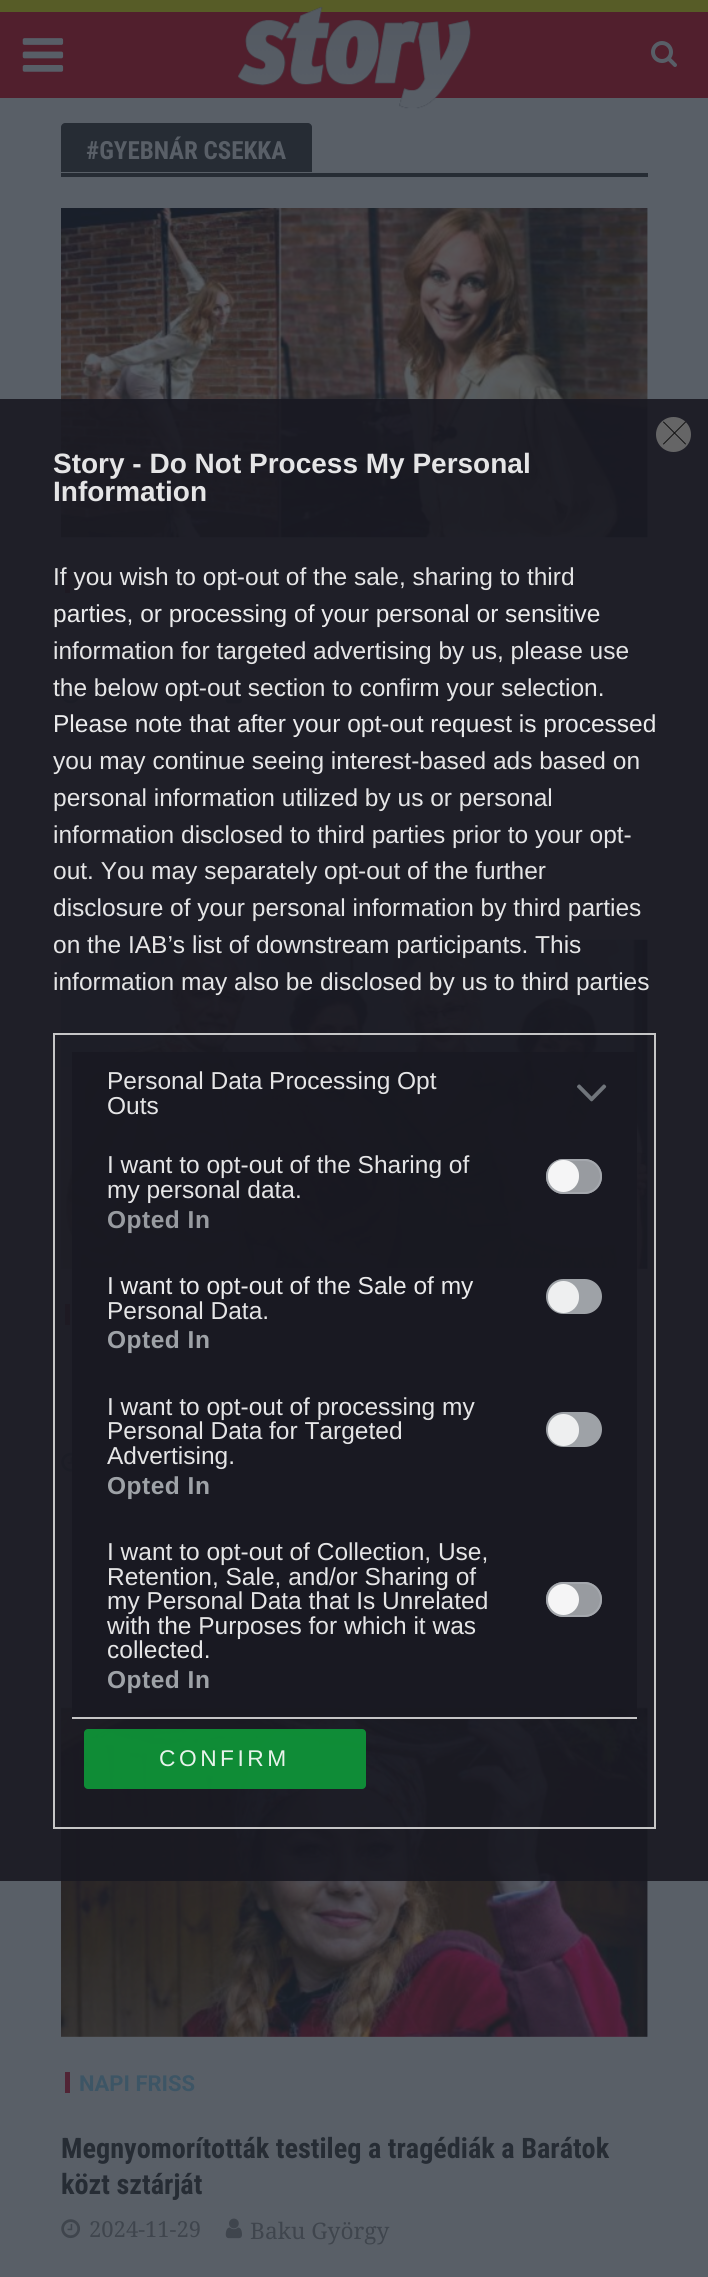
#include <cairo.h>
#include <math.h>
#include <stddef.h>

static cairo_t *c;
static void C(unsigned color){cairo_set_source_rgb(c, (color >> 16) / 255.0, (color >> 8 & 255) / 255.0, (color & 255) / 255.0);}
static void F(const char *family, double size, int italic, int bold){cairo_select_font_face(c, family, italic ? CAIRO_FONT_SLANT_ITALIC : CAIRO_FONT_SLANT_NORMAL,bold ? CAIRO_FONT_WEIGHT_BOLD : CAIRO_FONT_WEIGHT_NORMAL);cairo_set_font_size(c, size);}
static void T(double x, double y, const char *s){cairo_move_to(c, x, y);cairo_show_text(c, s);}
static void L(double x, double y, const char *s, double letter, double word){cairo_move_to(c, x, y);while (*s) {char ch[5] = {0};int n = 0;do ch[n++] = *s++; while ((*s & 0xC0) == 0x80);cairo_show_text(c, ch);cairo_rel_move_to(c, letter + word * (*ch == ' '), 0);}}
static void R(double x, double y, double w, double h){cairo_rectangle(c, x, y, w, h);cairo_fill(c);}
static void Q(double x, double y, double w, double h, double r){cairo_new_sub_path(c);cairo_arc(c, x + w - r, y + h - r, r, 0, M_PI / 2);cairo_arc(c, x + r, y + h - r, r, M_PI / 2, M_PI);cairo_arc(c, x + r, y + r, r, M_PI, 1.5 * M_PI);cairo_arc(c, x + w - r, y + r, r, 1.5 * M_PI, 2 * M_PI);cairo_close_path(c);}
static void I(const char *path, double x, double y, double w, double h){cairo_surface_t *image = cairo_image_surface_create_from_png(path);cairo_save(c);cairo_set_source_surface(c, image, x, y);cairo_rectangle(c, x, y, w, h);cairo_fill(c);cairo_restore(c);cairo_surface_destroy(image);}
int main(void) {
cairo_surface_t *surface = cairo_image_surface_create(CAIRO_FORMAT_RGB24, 708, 2277);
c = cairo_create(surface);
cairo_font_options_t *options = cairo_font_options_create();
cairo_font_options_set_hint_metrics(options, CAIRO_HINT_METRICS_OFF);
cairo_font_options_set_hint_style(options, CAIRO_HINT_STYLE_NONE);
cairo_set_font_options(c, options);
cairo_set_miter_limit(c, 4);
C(0x595f67);
cairo_paint(c);
C(0x511f2d);
R(0,12,708,86);
C(0x575c27);
R(0,0,708,12);
I("1.png",22,38,42,34);
I("2.png",238,7,233,102);
I("3.png",651,41,26,26);
C(0x262c34);
cairo_new_path(c);
cairo_move_to(c,65,123);
cairo_line_to(c,308,123);
cairo_curve_to(c,310,123,312,125,312,127);
cairo_line_to(c,312,172);
cairo_line_to(c,61,172);
cairo_line_to(c,61,127);
cairo_curve_to(c,61,125,63,123,65,123);
cairo_close_path(c);
cairo_fill(c);
F("Roboto Condensed",25,0,1);
C(0x595f67);
T(86,159,"#GYEBNÁR CSEKKA");
C(0x262c34);
R(61,173,587,4);
I("4.png",61,208,587,330);
C(0x512435);
R(65,572,5,21);
I("5.png",61,684,19,20);
I("6.png",225,683,17,21);
I("7.png",61,939,587,330);
R(65,1304,5,21);
I("8.png",61,1452,20,20);
I("9.png",225,1452,17,20);
I("10.png",61,1707,587,330);
R(65,2072,5,21);
F("Roboto",22,0,1);
C(0x3d5565);
T(79,2091,"NAPI FRISS");
F("Roboto Condensed",28.25,0,1);
C(0x262c34);
T(61,2158,"Megnyomorították testileg a tragédiák a Barátok");
T(61,2194,"közt sztárját");
I("11.png",61,2219,20,20);
F("Noto Serif",22,0,0);
C(0x3f454d);
T(89,2237,"2024-11-29");
I("12.png",225,2218,17,21);
F("Noto Serif",22.75,0,0);
T(250,2239,"Baku György");
cairo_set_source_rgba(c,0.098,0.098,0.133,0.9);
R(0,399,708,1482);
C(0x656566);
cairo_new_path(c);
cairo_arc(c,673.5,434.5,17.5,0,2 * M_PI);
cairo_fill(c);
cairo_new_path(c);
cairo_move_to(c,663.5,422);
cairo_line_to(c,685.5,444);
cairo_move_to(c,685.5,422);
cairo_line_to(c,663.5,444);
C(0x09090a);
cairo_set_line_width(c,.9);
cairo_set_line_cap(c,CAIRO_LINE_CAP_ROUND);
cairo_set_line_join(c,CAIRO_LINE_JOIN_ROUND);
cairo_stroke(c);
F("Liberation Sans",28,0,1);
C(0xe5e5e6);
T(53,473,"Story - Do Not Process My Personal");
T(53,501,"Information");
F("Liberation Sans",24.5,0,0);
T(53,585,"If you wish to opt-out of the sale, sharing to third");
C(0xebebec);
T(53,622,"parties, or processing of your personal or sensitive");
C(0xe5e5e6);
T(53,659,"information for targeted advertising by us, please use");
T(53,696,"the below opt-out section to confirm your selection.");
C(0xebebec);
T(53,732,"Please note that after your opt-out request is processed");
C(0xe5e5e6);
T(53,769,"you may continue seeing interest-based ads based on");
T(53,806,"personal information utilized by us or personal");
T(53,843,"information disclosed to third parties prior to your opt-");
T(53,879,"out. You may separately opt-out of the further");
T(53,916,"disclosure of your personal information by third parties");
T(53,953,"on the IAB’s list of downstream participants. This");
T(53,990,"information may also be disclosed by us to third parties");
cairo_rectangle(c,54,1034,601,794);
cairo_set_source_rgba(c,0.847,0.847,0.847,0.9);
cairo_set_line_width(c,2);
cairo_set_line_cap(c,CAIRO_LINE_CAP_BUTT);
cairo_set_line_join(c,CAIRO_LINE_JOIN_MITER);
cairo_stroke(c);
cairo_set_source_rgba(c,0.098,0.098,0.133,0.9);
R(72,1052,565,665);
C(0xc5c5c6);
R(72,1717,565,2);
C(0xe5e5e6);
T(107,1089,"Personal Data Processing Opt");
T(107,1114,"Outs");
I("13.png",577,1084,30,18);
T(107,1173,"I want to opt-out of the Sharing of");
T(107,1198,"my personal data.");
C(0x989ba0);
Q(546,1159,56,35,17.5);
cairo_fill(c);
Q(547,1160,54,33,16.5);
cairo_set_source_rgba(c,0.651,0.663,0.682,0.9);
cairo_stroke(c);
cairo_set_source_rgba(c,1,1,1,0.9);
Q(548,1160,31,32,15.5);
cairo_fill(c);
F("Liberation Sans",24.5,0,1);
C(0x989ba0);
L(107,1228,"Opted In",.5,0);
F("Liberation Sans",24.5,0,0);
C(0xebebec);
T(107,1294,"I want to opt-out of the Sale of my");
C(0xe5e5e6);
T(107,1319,"Personal Data.");
C(0x9ea2a7);
Q(547,1280,54,33,16.5);
cairo_fill_preserve(c);
cairo_stroke(c);
C(0xeeeff0);
Q(548,1281,31,32,15.5);
cairo_fill(c);
F("Liberation Sans",24.5,0,1);
C(0x9ea2a7);
L(107,1348,"Opted In",.5,0);
F("Liberation Sans",24.5,0,0);
C(0xe5e5e6);
T(107,1415,"I want to opt-out of processing my");
T(107,1439,"Personal Data for Targeted");
T(107,1464,"Advertising.");
C(0x9ea2a7);
Q(547,1413,54,33,16.5);
cairo_fill_preserve(c);
cairo_stroke(c);
C(0xeeeff0);
Q(548,1414,31,32,15.5);
cairo_fill(c);
F("Liberation Sans",24.5,0,1);
C(0x9ea2a7);
L(107,1494,"Opted In",.5,0);
F("Liberation Sans",24.5,0,0);
C(0xe5e5e6);
T(107,1560,"I want to opt-out of Collection, Use,");
T(107,1585,"Retention, Sale, and/or Sharing of");
T(107,1609,"my Personal Data that Is Unrelated");
T(107,1634,"with the Purposes for which it was");
T(107,1658,"collected.");
C(0x989ba0);
Q(546,1582,56,35,17.5);
cairo_fill(c);
Q(547,1583,54,33,16.5);
cairo_set_source_rgba(c,0.651,0.663,0.682,0.9);
cairo_stroke(c);
cairo_set_source_rgba(c,1,1,1,0.9);
cairo_arc(c,563.5,1599.5,15.5,0,2 * M_PI);
cairo_fill(c);
F("Liberation Sans",24.5,0,1);
C(0x9ea2a7);
L(107,1688,"Opted In",.5,0);
cairo_set_source_rgba(c,0.055,0.596,0.224,0.9);
Q(84,1729,282,60,4);
cairo_fill(c);
F("Liberation Sans",22.75,0,0);
C(0xe7f3eb);
L(159,1766,"CONFIRM",3.5,0);
cairo_surface_write_to_png(surface, "o.png");
cairo_font_options_destroy(options);
cairo_destroy(c);
cairo_surface_destroy(surface);
return 0;
}
